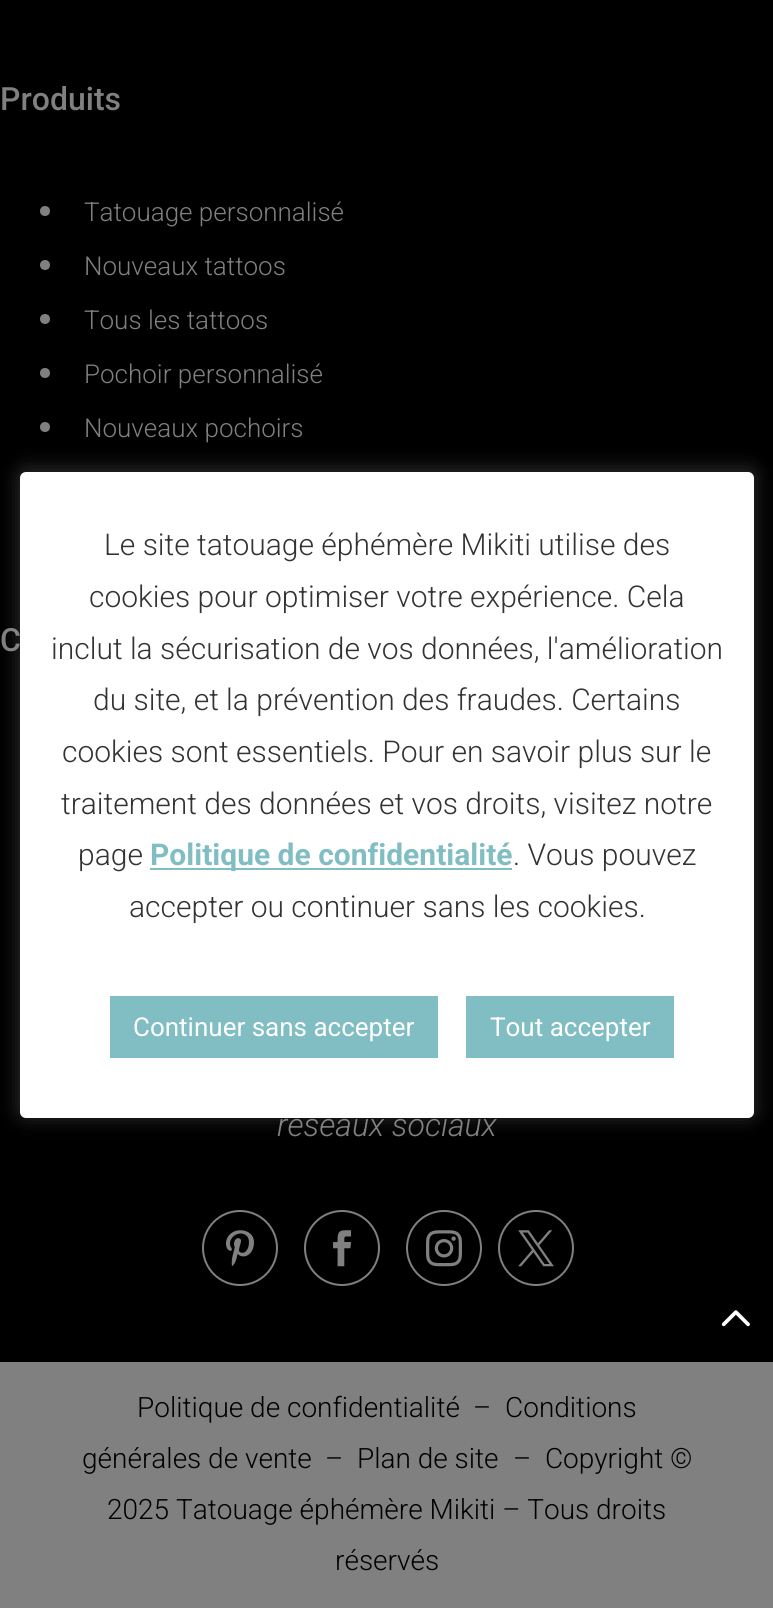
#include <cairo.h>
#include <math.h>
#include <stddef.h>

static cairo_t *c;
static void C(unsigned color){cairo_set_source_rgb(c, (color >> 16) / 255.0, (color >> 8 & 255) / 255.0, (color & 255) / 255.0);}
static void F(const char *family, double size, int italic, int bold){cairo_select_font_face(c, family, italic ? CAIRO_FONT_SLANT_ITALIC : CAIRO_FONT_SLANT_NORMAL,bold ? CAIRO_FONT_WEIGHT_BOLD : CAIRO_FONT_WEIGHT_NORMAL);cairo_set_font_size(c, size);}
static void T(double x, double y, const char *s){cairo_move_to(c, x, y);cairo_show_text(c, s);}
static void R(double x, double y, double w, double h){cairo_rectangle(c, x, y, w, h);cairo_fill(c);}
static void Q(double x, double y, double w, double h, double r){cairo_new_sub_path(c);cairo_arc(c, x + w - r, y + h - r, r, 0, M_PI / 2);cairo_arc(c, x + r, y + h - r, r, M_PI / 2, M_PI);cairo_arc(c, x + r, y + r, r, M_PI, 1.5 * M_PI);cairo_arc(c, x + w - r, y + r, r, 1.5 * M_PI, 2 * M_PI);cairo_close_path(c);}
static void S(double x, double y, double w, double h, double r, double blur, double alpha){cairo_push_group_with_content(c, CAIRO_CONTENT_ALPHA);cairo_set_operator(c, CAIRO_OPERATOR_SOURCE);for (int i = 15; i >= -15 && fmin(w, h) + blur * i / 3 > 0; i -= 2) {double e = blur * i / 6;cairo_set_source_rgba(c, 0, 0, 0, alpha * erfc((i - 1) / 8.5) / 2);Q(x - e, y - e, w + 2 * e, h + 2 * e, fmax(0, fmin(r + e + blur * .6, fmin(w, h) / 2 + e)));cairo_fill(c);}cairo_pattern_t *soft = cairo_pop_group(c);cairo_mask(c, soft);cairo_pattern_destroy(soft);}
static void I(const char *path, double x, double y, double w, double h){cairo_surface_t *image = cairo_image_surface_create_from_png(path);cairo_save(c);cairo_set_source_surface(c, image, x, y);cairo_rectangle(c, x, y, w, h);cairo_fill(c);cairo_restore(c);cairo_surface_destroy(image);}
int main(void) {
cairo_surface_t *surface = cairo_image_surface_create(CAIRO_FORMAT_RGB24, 773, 1608);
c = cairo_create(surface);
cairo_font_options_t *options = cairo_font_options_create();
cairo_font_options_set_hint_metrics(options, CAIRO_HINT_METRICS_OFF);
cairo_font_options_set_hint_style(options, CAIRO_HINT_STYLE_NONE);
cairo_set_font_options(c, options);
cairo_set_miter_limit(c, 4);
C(0x000000);
cairo_paint(c);
F("Roboto Medium",32,0,0);
C(0x808080);
T(0,110,"Produits");
cairo_new_path(c);
cairo_arc(c,45,211,5,0,2 * M_PI);
cairo_fill(c);
F("Roboto Light",26,0,0);
T(84,221,"Tatouage personnalisé");
cairo_new_path(c);
cairo_arc(c,45,265,5,0,2 * M_PI);
cairo_fill(c);
T(84,275,"Nouveaux tattoos");
cairo_new_path(c);
cairo_arc(c,45,319,5,0,2 * M_PI);
cairo_fill(c);
T(84,329,"Tous les tattoos");
cairo_new_path(c);
cairo_arc(c,45,373,5,0,2 * M_PI);
cairo_fill(c);
T(84,383,"Pochoir personnalisé");
cairo_new_path(c);
cairo_arc(c,45,427,5,0,2 * M_PI);
cairo_fill(c);
T(84,437,"Nouveaux pochoirs");
F("Roboto Medium",32,0,0);
T(0,651,"C");
F("Roboto Light",32,1,0);
T(277,1136,"réseaux sociaux");
cairo_new_path(c);
cairo_arc(c,240,1248,37,0,2 * M_PI);
cairo_stroke(c);
I("1.png",226,1230,28,37);
cairo_arc(c,342,1248,37,0,2 * M_PI);
cairo_stroke(c);
I("2.png",333,1230,19,37);
cairo_arc(c,444,1248,37,0,2 * M_PI);
cairo_stroke(c);
I("3.png",426,1230,36,37);
cairo_arc(c,536,1248,37,0,2 * M_PI);
cairo_stroke(c);
I("4.png",518,1230,36,37);
R(0,1362,773,246);
F("Roboto Light",28,0,0);
C(0x000000);
T(137,1417,"Politique de confidentialité");
T(473,1417,"–");
T(505,1417,"Conditions");
T(82,1468,"générales de vente");
T(325,1468,"–");
T(357,1468,"Plan de site");
T(513,1468,"–  Copyright ©");
T(107,1519,"2025 Tatouage éphémère Mikiti – Tous droits");
T(335,1570,"réservés");
C(0xacabab);
S(20,470,734,646,6,10,.3);
C(0xffffff);
Q(20,472,734,646,6);
cairo_fill(c);
F("Roboto Light",30,0,0);
C(0x333333);
T(104,555,"Le site tatouage éphémère Mikiti utilise des");
T(89,607,"cookies pour optimiser votre expérience. Cela");
T(51,659,"inclut la sécurisation de vos données, l'amélioration");
T(93,710,"du site, et la prévention des fraudes. Certains");
T(62,762,"cookies sont essentiels. Pour en savoir plus sur le");
T(61,814,"traitement des données et vos droits, visitez notre");
T(78,865,"page");
C(0x80bec4);
R(150,868,362,2);
F("Roboto",30,0,1);
T(150,865,"Politique de confidentialité");
F("Roboto Light",30,0,0);
C(0x333333);
T(513,865,". Vous pouvez");
T(129,917,"accepter ou continuer sans les cookies.");
C(0x80bec4);
R(110,996,328,62);
F("Roboto",26,0,0);
C(0xffffff);
T(133,1036,"Continuer sans accepter");
C(0x80bec4);
R(466,996,208,62);
C(0xffffff);
T(490,1036,"Tout accepter");
I("5.png",721,1310,29,17);
cairo_surface_write_to_png(surface, "o.png");
cairo_font_options_destroy(options);
cairo_destroy(c);
cairo_surface_destroy(surface);
return 0;
}
